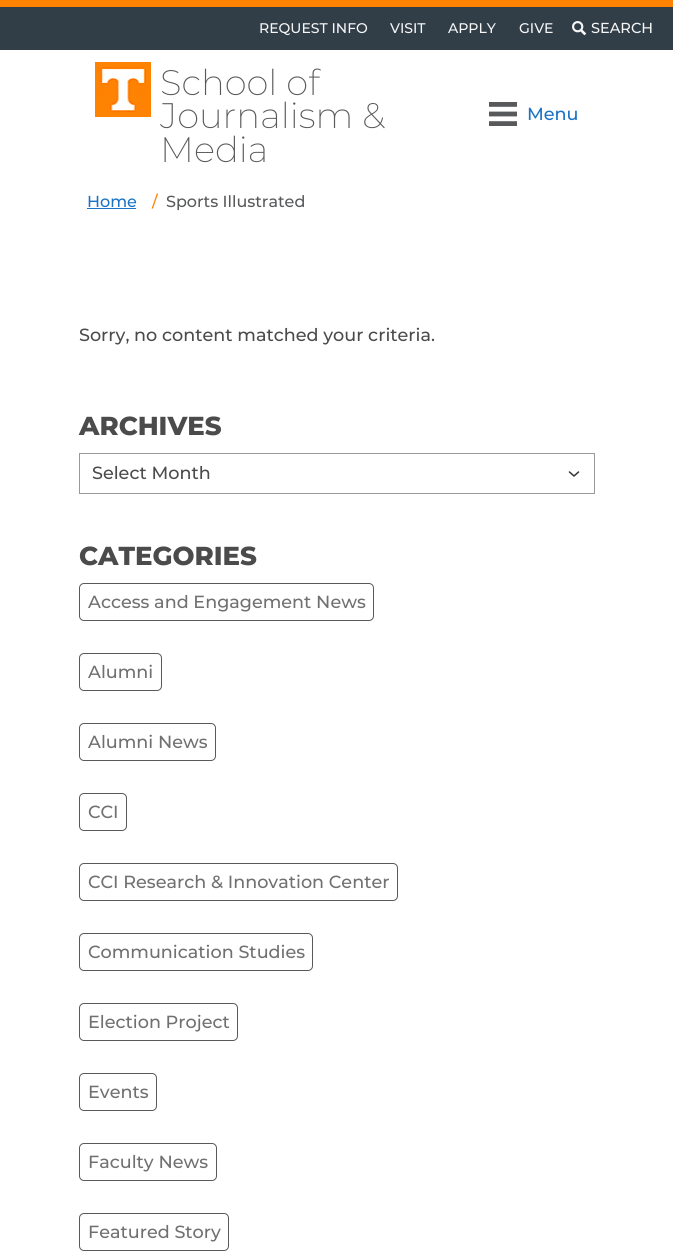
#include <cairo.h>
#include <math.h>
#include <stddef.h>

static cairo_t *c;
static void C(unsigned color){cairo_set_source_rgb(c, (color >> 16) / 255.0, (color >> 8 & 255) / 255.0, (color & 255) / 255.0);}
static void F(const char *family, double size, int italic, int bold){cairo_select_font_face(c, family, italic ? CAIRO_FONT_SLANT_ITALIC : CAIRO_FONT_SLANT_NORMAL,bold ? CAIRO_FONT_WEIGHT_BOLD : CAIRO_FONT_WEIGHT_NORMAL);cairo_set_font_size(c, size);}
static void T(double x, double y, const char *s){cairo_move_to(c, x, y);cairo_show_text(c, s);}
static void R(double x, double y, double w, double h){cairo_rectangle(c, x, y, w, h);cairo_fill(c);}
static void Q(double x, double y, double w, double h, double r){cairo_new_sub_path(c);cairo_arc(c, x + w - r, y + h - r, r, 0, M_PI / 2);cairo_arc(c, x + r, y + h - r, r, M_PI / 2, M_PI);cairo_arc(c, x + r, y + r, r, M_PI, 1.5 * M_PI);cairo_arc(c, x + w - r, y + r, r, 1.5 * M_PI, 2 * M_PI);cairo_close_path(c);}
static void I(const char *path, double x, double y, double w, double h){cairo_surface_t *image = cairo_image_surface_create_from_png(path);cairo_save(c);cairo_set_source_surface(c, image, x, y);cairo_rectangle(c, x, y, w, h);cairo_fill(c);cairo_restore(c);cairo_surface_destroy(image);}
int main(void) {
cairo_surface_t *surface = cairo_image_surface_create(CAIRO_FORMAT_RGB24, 673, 1251);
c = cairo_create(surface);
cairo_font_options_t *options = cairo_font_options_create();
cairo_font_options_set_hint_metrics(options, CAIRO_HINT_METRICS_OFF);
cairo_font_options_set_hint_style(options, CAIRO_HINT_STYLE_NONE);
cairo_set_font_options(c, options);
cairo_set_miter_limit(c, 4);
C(0xffffff);
cairo_paint(c);
C(0x313e48);
R(0,7,673,43);
C(0xff8200);
R(0,0,673,7);
F("Montserrat Medium",14,0,0);
C(0xf6f6f6);
T(259,33,"REQUEST INFO");
T(390,33,"VISIT");
T(448,33,"APPLY");
T(519,33,"GIVE");
I("1.png",572,21,15,15);
F("Montserrat Medium",14.5,0,0);
T(591,33,"SEARCH");
I("2.png",95,62,56,55);
F("Montserrat ExtraLight",35.5,0,0);
C(0x58595b);
T(160,95,"School of");
T(160,128,"Journalism &");
T(160,162,"Media");
I("3.png",489,102,28,24);
F("Montserrat Medium",17.6,0,0);
C(0x1a73c5);
T(527,120,"Menu");
F("Montserrat Medium",16,0,0);
T(87,207,"Home");
R(87,208,49,1);
C(0xff8200);
T(152,207,"/");
C(0x58595b);
T(166,207,"Sports Illustrated");
F("Montserrat Medium",17.6,0,0);
C(0x4b4b4b);
T(79,341,"Sorry, no content matched your criteria.");
F("Montserrat ExtraBold",26,0,0);
T(79,435,"ARCHIVES");
cairo_new_path(c);
cairo_move_to(c,569.5,472);
cairo_line_to(c,574,476);
cairo_line_to(c,578.5,472);
C(0x333333);
cairo_set_line_width(c,1.5);
cairo_set_line_cap(c,CAIRO_LINE_CAP_ROUND);
cairo_set_line_join(c,CAIRO_LINE_JOIN_ROUND);
cairo_stroke(c);
cairo_rectangle(c,79.5,453.5,515,40);
C(0x999999);
cairo_set_line_width(c,1);
cairo_set_line_cap(c,CAIRO_LINE_CAP_BUTT);
cairo_set_line_join(c,CAIRO_LINE_JOIN_MITER);
cairo_stroke(c);
F("Montserrat Medium",17.6,0,0);
C(0x4b4b4b);
T(92,479,"Select Month");
F("Montserrat ExtraBold",26,0,0);
T(79,565,"CATEGORIES");
Q(79.5,583.5,294,37,4.5);
C(0x58595b);
cairo_stroke(c);
F("Montserrat Medium",17.6,0,0);
C(0x707070);
T(88,608,"Access and Engagement News");
Q(79.5,653.5,82,37,4.5);
C(0x58595b);
cairo_stroke(c);
C(0x707070);
T(88,678,"Alumni");
Q(79.5,723.5,136,37,4.5);
C(0x58595b);
cairo_stroke(c);
C(0x707070);
T(88,748,"Alumni News");
Q(79.5,793.5,47,37,4.5);
C(0x58595b);
cairo_stroke(c);
C(0x707070);
T(88,818,"CCI");
Q(79.5,863.5,318,37,4.5);
C(0x58595b);
cairo_stroke(c);
C(0x707070);
T(88,888,"CCI Research & Innovation Center");
Q(79.5,933.5,233,37,4.5);
C(0x58595b);
cairo_stroke(c);
C(0x707070);
T(88,958,"Communication Studies");
Q(79.5,1003.5,158,37,4.5);
C(0x58595b);
cairo_stroke(c);
C(0x707070);
T(88,1028,"Election Project");
Q(79.5,1073.5,77,37,4.5);
C(0x58595b);
cairo_stroke(c);
C(0x707070);
T(88,1098,"Events");
Q(79.5,1143.5,137,37,4.5);
C(0x58595b);
cairo_stroke(c);
C(0x707070);
T(88,1168,"Faculty News");
Q(79.5,1213.5,149,37,4.5);
C(0x58595b);
cairo_stroke(c);
C(0x707070);
T(88,1238,"Featured Story");
cairo_surface_write_to_png(surface, "o.png");
cairo_font_options_destroy(options);
cairo_destroy(c);
cairo_surface_destroy(surface);
return 0;
}
